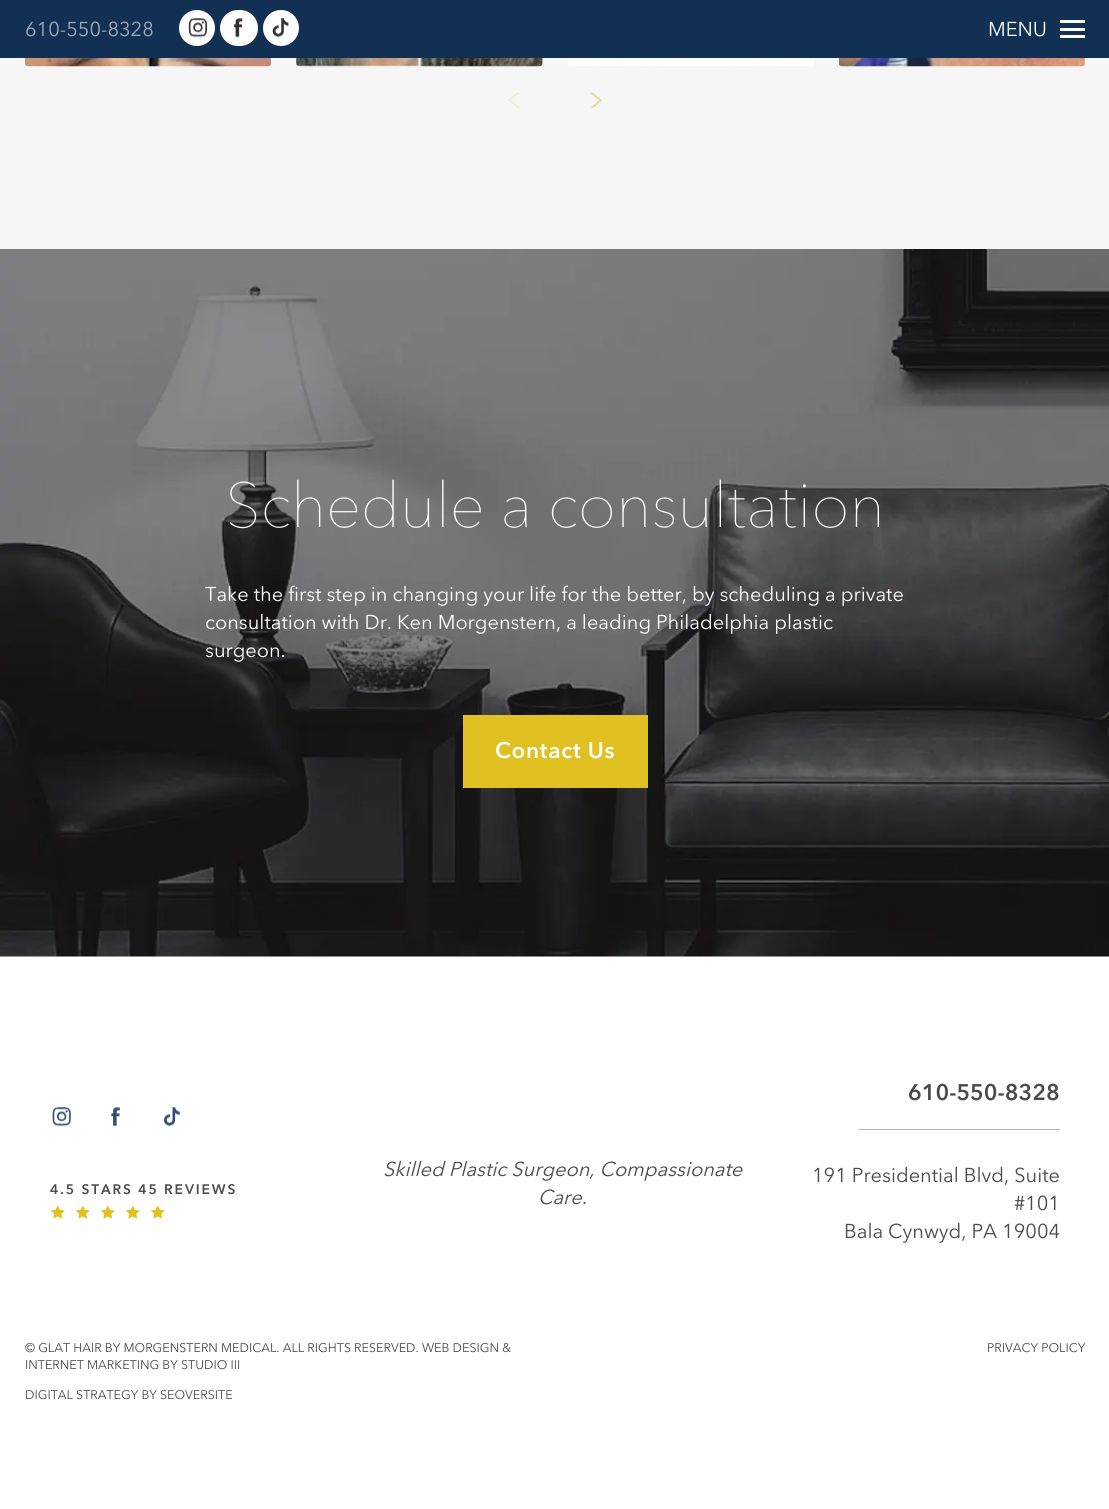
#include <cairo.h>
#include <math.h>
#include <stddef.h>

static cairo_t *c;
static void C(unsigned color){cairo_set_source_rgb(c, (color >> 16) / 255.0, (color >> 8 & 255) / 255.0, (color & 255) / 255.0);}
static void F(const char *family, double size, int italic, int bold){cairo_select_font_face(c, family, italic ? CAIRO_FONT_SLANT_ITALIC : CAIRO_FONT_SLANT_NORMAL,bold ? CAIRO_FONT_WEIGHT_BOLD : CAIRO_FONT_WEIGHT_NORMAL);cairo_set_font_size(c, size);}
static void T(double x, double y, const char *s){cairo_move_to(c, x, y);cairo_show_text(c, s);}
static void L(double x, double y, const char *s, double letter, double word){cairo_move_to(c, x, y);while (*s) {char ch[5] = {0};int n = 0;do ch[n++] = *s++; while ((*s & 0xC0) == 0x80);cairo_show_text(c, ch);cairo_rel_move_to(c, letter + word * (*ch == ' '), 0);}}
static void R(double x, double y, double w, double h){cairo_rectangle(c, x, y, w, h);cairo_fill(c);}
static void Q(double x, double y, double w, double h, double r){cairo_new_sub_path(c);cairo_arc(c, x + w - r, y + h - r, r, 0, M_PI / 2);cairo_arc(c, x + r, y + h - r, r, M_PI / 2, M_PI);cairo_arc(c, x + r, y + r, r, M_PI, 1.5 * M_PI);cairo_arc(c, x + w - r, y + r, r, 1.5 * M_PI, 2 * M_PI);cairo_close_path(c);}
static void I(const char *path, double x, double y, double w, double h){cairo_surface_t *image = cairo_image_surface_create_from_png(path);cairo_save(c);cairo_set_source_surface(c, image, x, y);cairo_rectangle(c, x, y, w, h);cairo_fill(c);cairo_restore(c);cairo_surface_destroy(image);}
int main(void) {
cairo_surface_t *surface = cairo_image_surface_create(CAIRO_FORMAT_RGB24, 1109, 1509);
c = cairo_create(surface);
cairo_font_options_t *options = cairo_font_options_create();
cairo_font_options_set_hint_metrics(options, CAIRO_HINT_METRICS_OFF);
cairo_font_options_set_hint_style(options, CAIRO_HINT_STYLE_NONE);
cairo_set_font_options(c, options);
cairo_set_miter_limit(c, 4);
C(0xf6f6f6);
cairo_paint(c);
I("1.png",25,58,246,9);
C(0xfafafa);
Q(296,-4,247,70,4);
cairo_fill(c);
I("2.png",296,58,247,9);
Q(568,-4,246,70,4);
cairo_fill(c);
I("3.png",568,58,246,8);
I("4.png",839,58,246,9);
I("5.png",508,92,12,16);
I("6.png",589,92,14,16);
C(0x122f54);
R(0,0,1109,58);
F("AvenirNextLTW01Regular",20,0,0);
C(0xa0acbb);
T(25,36,"610-550-8328");
C(0xffffff);
cairo_new_path(c);
cairo_arc(c,197,28,18,0,2 * M_PI);
cairo_fill(c);
I("7.png",188,18,19,20);
Q(220,10,38,36,18);
cairo_fill(c);
I("8.png",234,18,9,20);
cairo_arc(c,281,28,18,0,2 * M_PI);
cairo_fill(c);
I("9.png",272,18,17,20);
T(988,36,"MENU");
R(1060,28,25,3);
R(1060,20,25,3);
R(1060,35,25,3);
R(0,956,1109,553);
I("10.png",0,249,1109,708);
F("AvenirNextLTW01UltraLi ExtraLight",62.5,0,0);
T(225,527,"Schedule a consultation");
F("AvenirNextLTW01Regular",20,0,0);
T(205,601,"Take the first step in changing your life for the better, by scheduling a private");
T(205,629,"consultation with Dr. Ken Morgenstern, a leading Philadelphia plastic");
T(205,657,"surgeon.");
C(0xe1c122);
R(463,715,185,73);
F("Avenir Next",22.5,0,1);
C(0xffffff);
L(495,758,"Contact Us",.75,0);
I("11.png",52,1107,19,20);
I("12.png",111,1107,9,20);
I("13.png",163,1107,17,20);
F("Avenir Next",13.75,0,1);
C(0x4b4b4b);
L(50,1194,"4.5 STARS 45 REVIEWS",1.9,0);
I("14.png",50,1205,15,14);
I("14.png",75,1205,15,14);
I("14.png",100,1205,15,14);
I("14.png",125,1205,15,14);
I("14.png",150,1205,15,14);
F("AvenirNextLTW01Regular",20,1,0);
T(383,1176,"Skilled Plastic Surgeon, Compassionate");
T(538,1204,"Care.");
C(0xb3b3b3);
R(859,1129,201,1);
F("Avenir Next",22.5,0,1);
C(0x4b4b4b);
T(908,1100,"610-550-8328");
F("AvenirNextLTW01Regular",20,0,0);
T(812,1182,"191 Presidential Blvd, Suite");
T(1014,1210,"#101");
T(844,1238,"Bala Cynwyd, PA 19004");
F("AvenirNextLTW01Regular",12.5,0,0);
T(25,1352,"© GLAT HAIR BY MORGENSTERN MEDICAL. ALL RIGHTS RESERVED. WEB DESIGN &");
T(25,1369,"INTERNET MARKETING BY STUDIO III");
T(25,1399,"DIGITAL STRATEGY BY SEOVERSITE");
T(987,1352,"PRIVACY POLICY");
cairo_surface_write_to_png(surface, "o.png");
cairo_font_options_destroy(options);
cairo_destroy(c);
cairo_surface_destroy(surface);
return 0;
}
